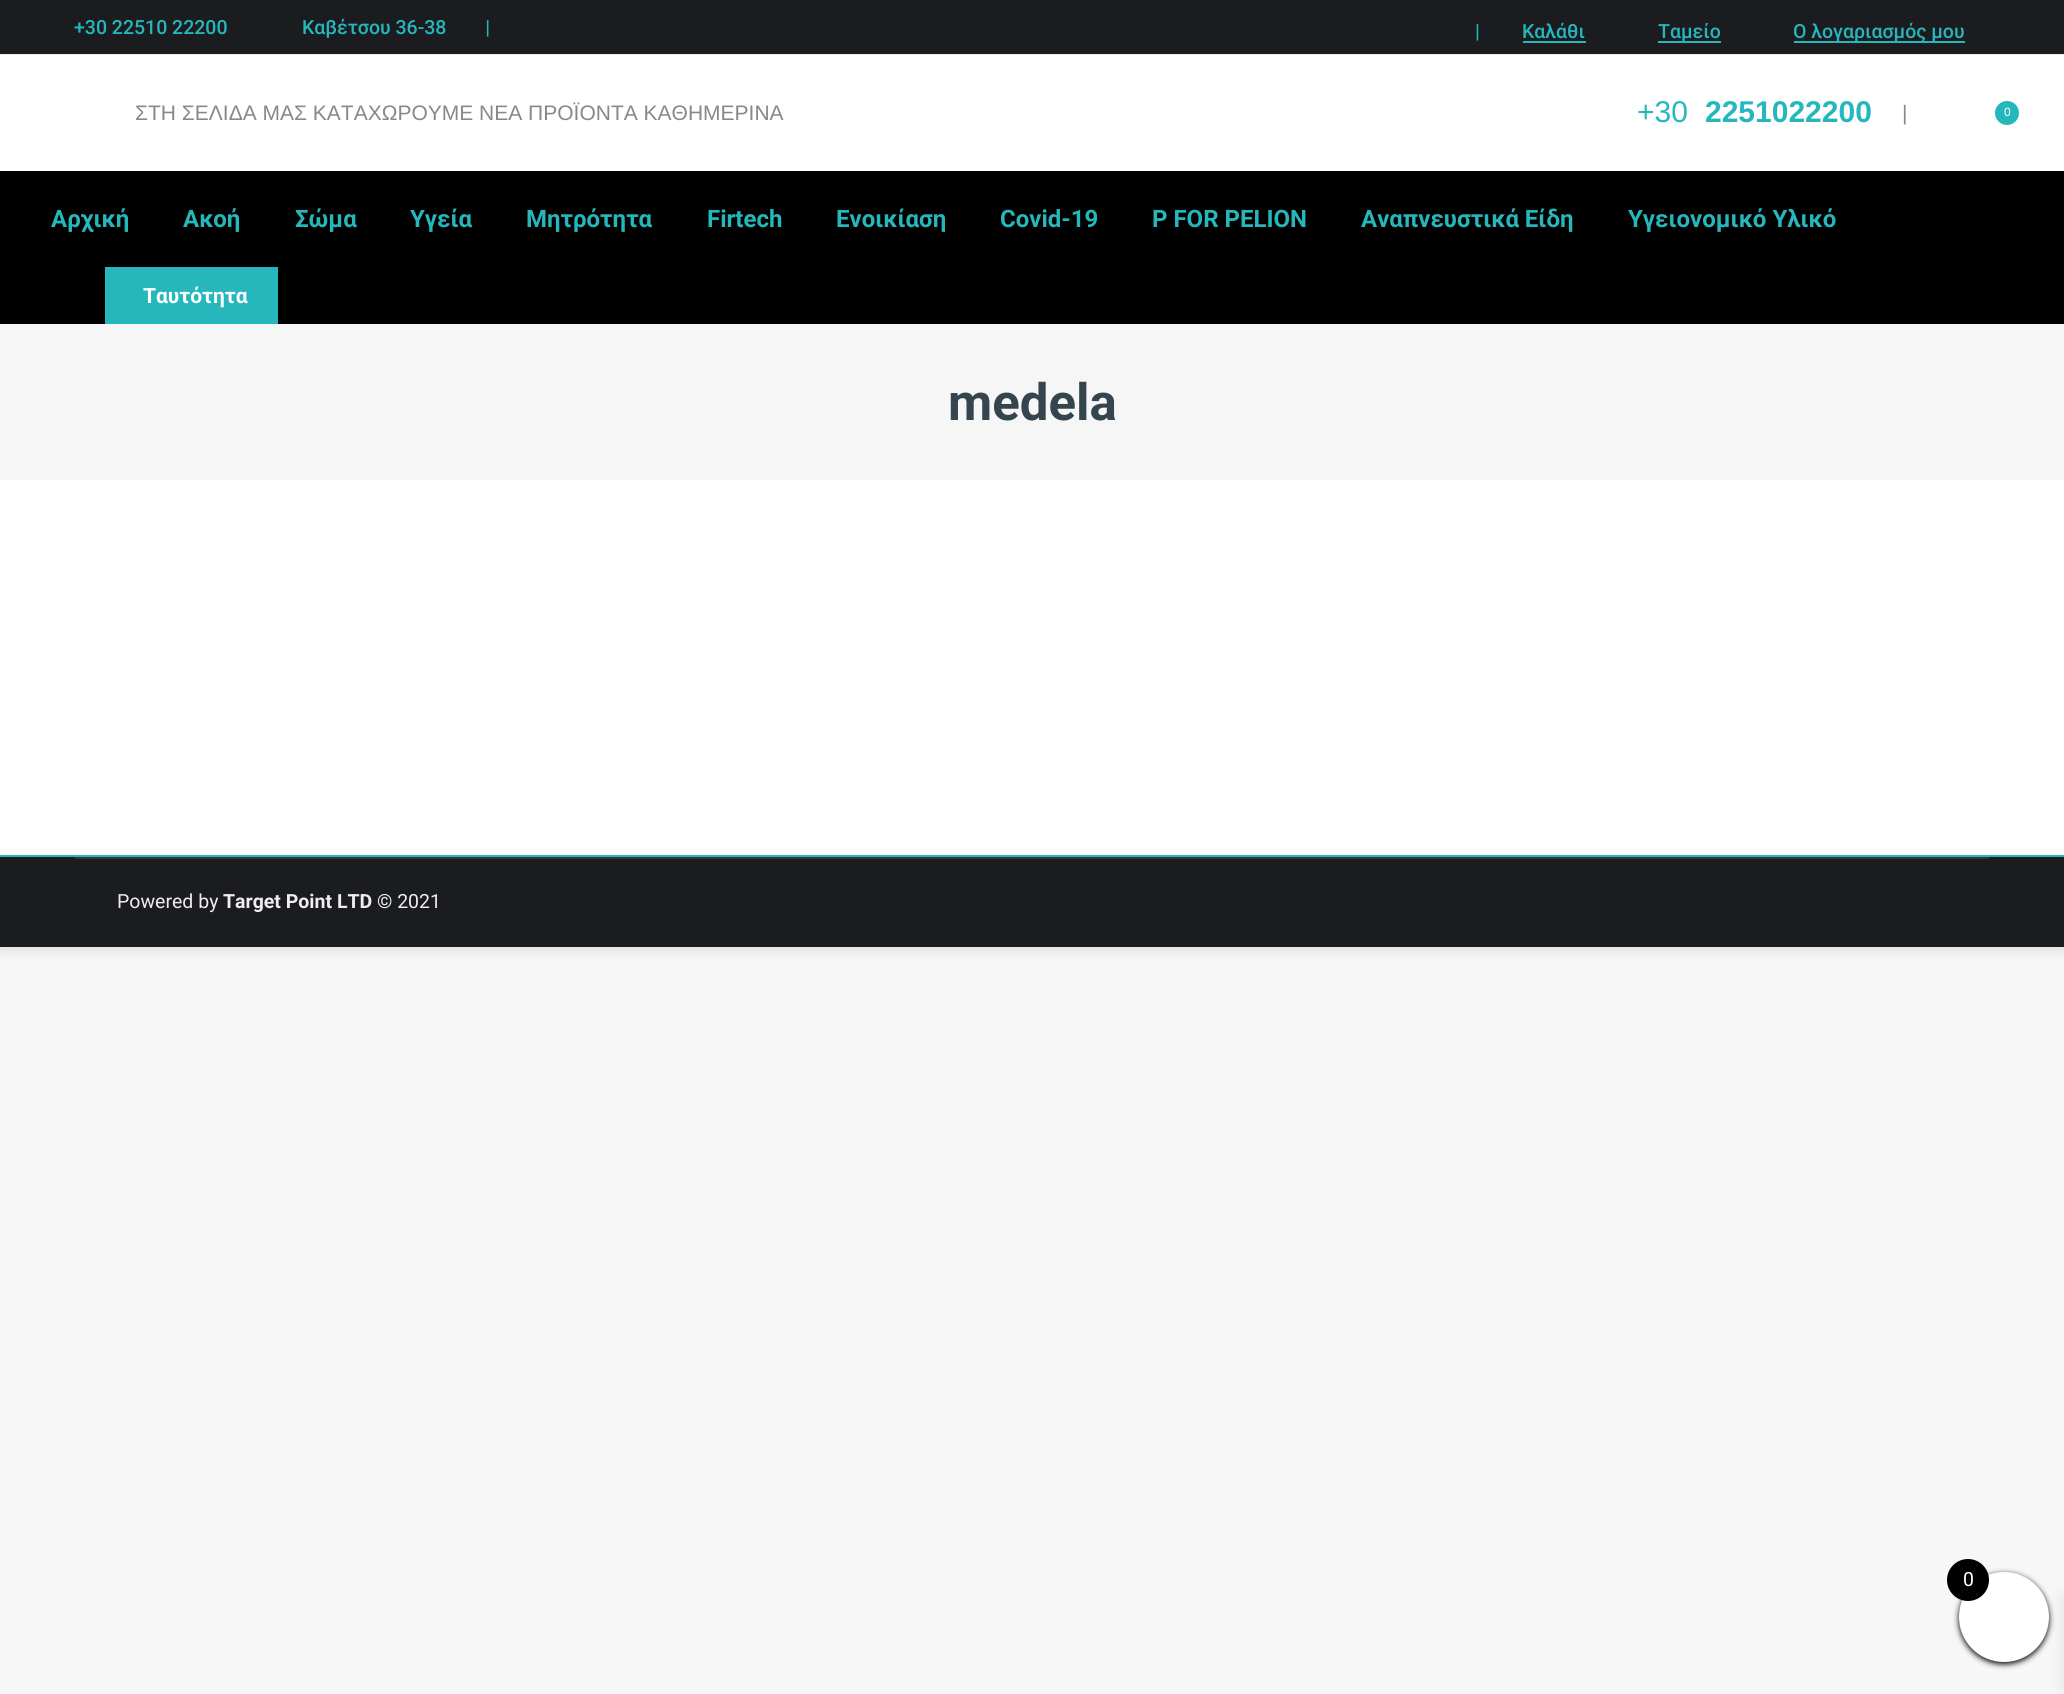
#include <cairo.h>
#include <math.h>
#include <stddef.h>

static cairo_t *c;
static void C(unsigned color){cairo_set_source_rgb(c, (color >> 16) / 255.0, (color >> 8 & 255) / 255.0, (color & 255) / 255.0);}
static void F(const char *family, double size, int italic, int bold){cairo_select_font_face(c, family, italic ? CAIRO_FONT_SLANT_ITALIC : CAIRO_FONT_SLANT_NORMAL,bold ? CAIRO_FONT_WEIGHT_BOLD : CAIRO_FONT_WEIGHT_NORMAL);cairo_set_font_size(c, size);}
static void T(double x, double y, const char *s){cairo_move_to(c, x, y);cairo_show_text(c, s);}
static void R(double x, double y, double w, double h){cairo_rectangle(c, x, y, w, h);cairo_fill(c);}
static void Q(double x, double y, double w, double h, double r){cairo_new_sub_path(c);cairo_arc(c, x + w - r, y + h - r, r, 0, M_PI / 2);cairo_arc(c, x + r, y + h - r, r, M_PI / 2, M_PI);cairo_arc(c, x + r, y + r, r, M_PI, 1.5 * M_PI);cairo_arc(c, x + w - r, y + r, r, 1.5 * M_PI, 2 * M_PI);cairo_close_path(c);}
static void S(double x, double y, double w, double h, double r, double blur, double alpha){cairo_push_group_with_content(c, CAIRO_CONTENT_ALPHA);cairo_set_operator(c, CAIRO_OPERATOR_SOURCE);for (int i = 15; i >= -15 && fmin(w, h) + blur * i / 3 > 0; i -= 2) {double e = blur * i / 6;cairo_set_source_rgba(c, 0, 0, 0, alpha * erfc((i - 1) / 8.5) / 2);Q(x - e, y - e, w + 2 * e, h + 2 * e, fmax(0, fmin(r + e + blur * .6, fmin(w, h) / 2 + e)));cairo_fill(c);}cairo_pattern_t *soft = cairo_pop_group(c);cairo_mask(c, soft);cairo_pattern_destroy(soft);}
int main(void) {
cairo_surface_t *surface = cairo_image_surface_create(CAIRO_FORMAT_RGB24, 2064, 1694);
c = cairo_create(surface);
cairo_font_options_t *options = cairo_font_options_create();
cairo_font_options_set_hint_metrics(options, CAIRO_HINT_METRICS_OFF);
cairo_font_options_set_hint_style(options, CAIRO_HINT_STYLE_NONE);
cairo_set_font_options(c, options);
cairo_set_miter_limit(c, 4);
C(0xf7f7f7);
cairo_paint(c);
C(0x000000);
S(0,0,2064,947,0,9,.15);
C(0xffffff);
R(0,55,2064,800);
C(0xe9e9e9);
R(0,54,2064,1);
C(0x1a1c20);
R(0,0,2064,53);
C(0x1d1f22);
R(0,53,2064,1);
F("Roboto Medium",19.5,0,0);
C(0x26b7bc);
T(74,34,"+30 22510 22200");
T(302,34,"Καβέτσου 36-38        |");
T(1475,38,"|");
T(1522,38,"Καλάθι");
R(1523,41,63,2);
R(1658,41,63,2);
T(1658,38,"Ταμείο");
R(1794,41,171,2);
T(1793,38,"Ο λογαριασμός μου");
F("Liberation Sans",21,0,0);
C(0x888888);
T(135,120,"ΣΤΗ ΣΕΛΙΔΑ ΜΑΣ ΚΑΤΑΧΩΡΟΥΜΕ ΝΕΑ ΠΡΟΪΟΝΤΑ ΚΑΘΗΜΕΡΙΝΑ");
F("Liberation Sans",30,0,0);
C(0x26b7bc);
T(1637,122,"+30");
F("Liberation Sans",30,0,1);
T(1705,122,"2251022200");
F("Liberation Sans",21,0,0);
C(0x888888);
T(1902,120,"|");
C(0x26b7bc);
cairo_new_path(c);
cairo_arc(c,2007,113,12,0,2 * M_PI);
cairo_fill(c);
F("Liberation Sans",12,0,0);
C(0xffffff);
T(2004,116,"0");
C(0x000000);
R(0,171,2064,153);
F("Roboto",24,0,1);
C(0x26b7bc);
T(51,227,"Αρχική");
T(183,227,"Ακοή");
T(295,227,"Σώμα");
T(410,227,"Υγεία");
T(526,227,"Μητρότητα");
T(707,227,"Firtech");
T(836,227,"Ενοικίαση");
T(1000,227,"Covid-19");
T(1152,227,"P FOR PELION");
T(1361,227,"Αναπνευστικά Είδη");
T(1628,227,"Υγειονομικό Υλικό");
R(105,267,173,57);
F("Roboto",21,0,1);
C(0xffffff);
T(143,303,"Ταυτότητα");
C(0xf6f6f6);
R(0,324,2064,156);
F("Roboto",51,0,1);
C(0x34454e);
T(948,420,"medela");
C(0x1a1c20);
R(0,857,2064,90);
C(0x26b7bc);
R(0,855,2064,2);
C(0x35373b);
R(75,857,1914,2);
F("Roboto",19.5,0,0);
C(0xeeeeee);
T(117,908,"Powered by");
F("Roboto",19.5,0,1);
T(223,908,"Target Point LTD");
F("Roboto",19.5,0,0);
T(377,908,"© 2021");
C(0x000000);
S(1959,1574,90,90,45,3,1);
S(2064,1598,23,90,0,7.5,.1);
C(0xffffff);
cairo_arc(c,2004,1617,45,0,2 * M_PI);
cairo_fill(c);
C(0x000000);
cairo_arc(c,1968,1580,21,0,2 * M_PI);
cairo_fill(c);
C(0xffffff);
T(1963,1586,"0");
cairo_surface_write_to_png(surface, "o.png");
cairo_font_options_destroy(options);
cairo_destroy(c);
cairo_surface_destroy(surface);
return 0;
}
